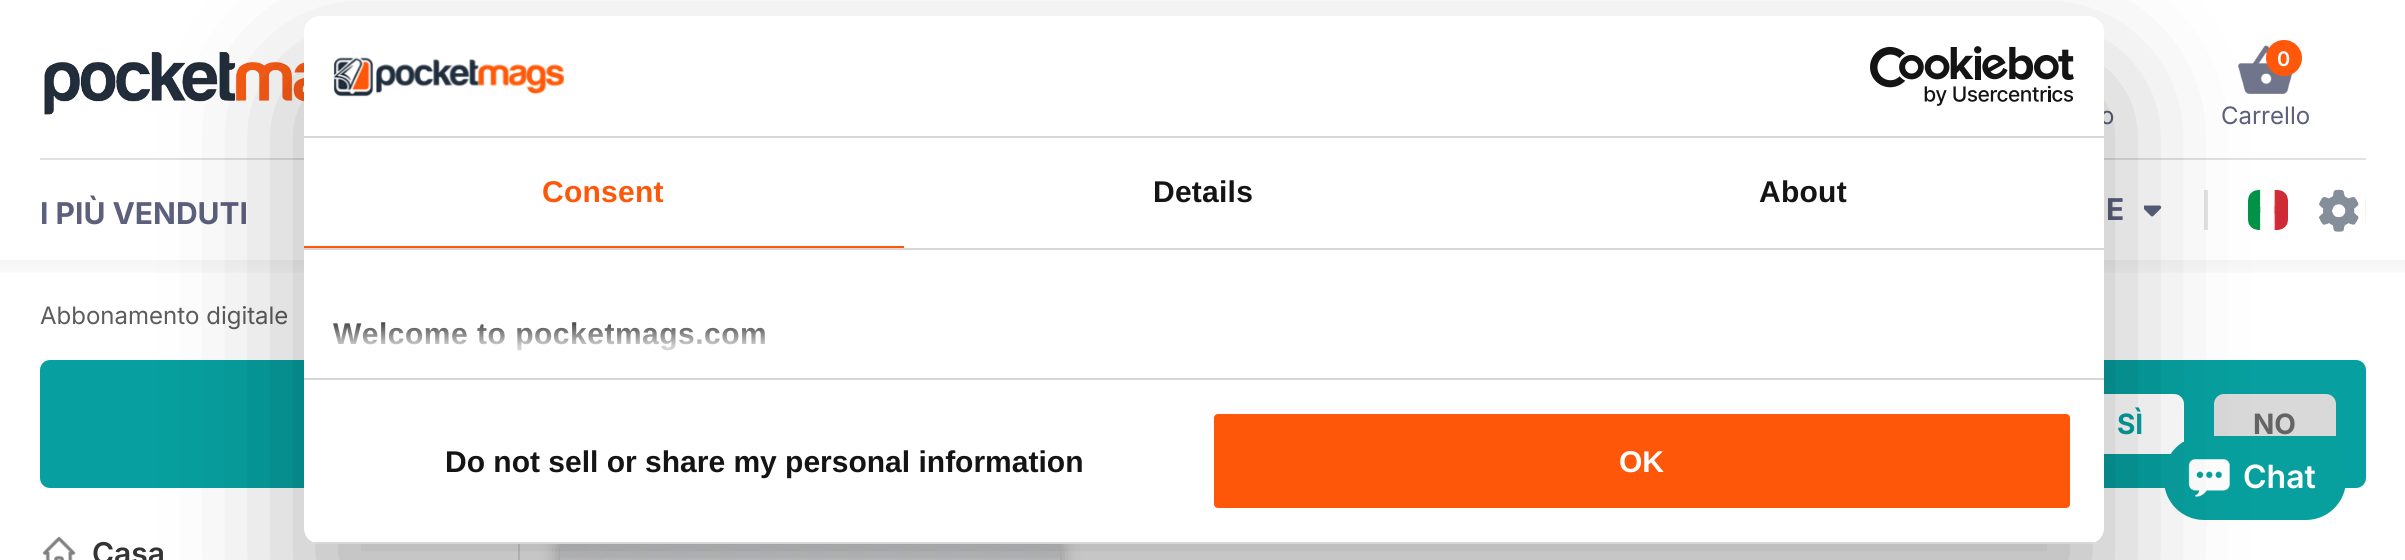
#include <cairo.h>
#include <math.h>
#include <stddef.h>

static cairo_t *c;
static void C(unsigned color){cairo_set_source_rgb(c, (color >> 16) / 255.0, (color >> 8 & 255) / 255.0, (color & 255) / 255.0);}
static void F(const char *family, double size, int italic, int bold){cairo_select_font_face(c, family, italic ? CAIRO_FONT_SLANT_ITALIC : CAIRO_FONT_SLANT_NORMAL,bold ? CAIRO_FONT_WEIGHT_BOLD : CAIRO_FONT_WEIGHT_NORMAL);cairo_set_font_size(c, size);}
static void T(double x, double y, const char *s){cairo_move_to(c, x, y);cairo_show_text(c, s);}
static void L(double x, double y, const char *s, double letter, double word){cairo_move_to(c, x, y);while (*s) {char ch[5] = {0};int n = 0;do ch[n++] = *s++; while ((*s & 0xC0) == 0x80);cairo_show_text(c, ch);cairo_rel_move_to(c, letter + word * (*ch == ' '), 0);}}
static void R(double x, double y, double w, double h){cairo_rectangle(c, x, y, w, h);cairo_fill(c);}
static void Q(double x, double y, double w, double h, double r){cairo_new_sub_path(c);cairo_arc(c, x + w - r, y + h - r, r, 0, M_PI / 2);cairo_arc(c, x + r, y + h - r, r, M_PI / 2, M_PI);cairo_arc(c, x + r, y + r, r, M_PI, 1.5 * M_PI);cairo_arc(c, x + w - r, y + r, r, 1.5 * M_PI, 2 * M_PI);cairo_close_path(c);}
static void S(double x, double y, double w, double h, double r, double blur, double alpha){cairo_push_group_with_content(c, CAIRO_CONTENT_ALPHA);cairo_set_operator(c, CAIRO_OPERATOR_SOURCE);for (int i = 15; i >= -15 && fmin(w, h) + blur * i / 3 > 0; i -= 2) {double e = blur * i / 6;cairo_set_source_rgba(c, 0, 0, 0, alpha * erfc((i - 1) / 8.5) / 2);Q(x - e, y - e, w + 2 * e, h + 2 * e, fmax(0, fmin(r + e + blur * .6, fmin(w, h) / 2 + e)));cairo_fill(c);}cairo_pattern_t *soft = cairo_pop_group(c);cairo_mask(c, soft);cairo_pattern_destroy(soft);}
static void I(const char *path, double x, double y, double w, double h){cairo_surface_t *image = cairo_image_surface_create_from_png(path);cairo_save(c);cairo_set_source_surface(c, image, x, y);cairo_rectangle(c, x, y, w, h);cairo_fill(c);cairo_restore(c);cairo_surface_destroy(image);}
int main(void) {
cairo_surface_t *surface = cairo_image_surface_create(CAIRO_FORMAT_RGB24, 2405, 560);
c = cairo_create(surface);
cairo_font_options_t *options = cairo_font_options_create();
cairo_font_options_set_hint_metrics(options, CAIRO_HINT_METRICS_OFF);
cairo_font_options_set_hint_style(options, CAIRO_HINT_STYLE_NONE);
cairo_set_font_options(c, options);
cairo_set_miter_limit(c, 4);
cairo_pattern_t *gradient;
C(0xffffff);
cairo_paint(c);
cairo_save(c);
cairo_rectangle(c,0,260,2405,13);
cairo_clip(c);
C(0x000000);
S(-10,-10,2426,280,0,10,.05);
cairo_restore(c);
C(0xe1e1e1);
R(40,158,2326,2);
I("1.png",44,52,260,63);
F("Inter",24,0,0);
C(0x5c607c);
T(2100,124,"o");
I("2.png",2238,45,55,49);
C(0xff580a);
cairo_arc(c,2284,58,18,0,2 * M_PI);
cairo_fill(c);
F("Inter SemiBold",20,0,0);
C(0xffffff);
T(2277,66,"0");
F("Inter",24,0,0);
C(0x5c607c);
T(2221,124,"Carrello");
F("Inter",30,0,1);
T(40,224,"I PIÙ VENDUTI");
T(2106,220,"E");
I("3.png",2144,205,18,12);
C(0xe1e1e1);
R(2204,190,4,40);
I("4.png",2248,190,40,40);
I("5.png",2319,189,47,43);
F("Inter",24,0,0);
C(0x5c5c5c);
T(40,324,"Abbonamento digitale");
C(0x079f9f);
Q(40,360,2326,128,10);
cairo_fill(c);
C(0xffffff);
Q(2076,394,108,60,10);
cairo_fill(c);
F("Inter",28,0,1);
C(0x079f9f);
T(2117,434,"SÌ");
C(0xd9d9d9);
Q(2214,394,122,60,10);
cairo_fill(c);
C(0x646464);
T(2253,434,"NO");
I("6.png",42,536,34,24);
F("Inter SemiBold",30,0,0);
C(0x333333);
T(92,564,"Casa");
C(0xe1e1e1);
R(518,544,2,16);
C(0x000000);
S(560,528,500,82,20,10,.3);
I("7.png",560,544,500,16);
C(0x07a09e);
cairo_new_path(c);
cairo_move_to(c,2204,436);
cairo_line_to(c,2336,436);
cairo_curve_to(c,2341.5,436,2346,440.5,2346,446);
cairo_line_to(c,2346,480);
cairo_curve_to(c,2346,502,2328,520,2306,520);
cairo_line_to(c,2204,520);
cairo_curve_to(c,2182,520,2164,502,2164,480);
cairo_line_to(c,2164,476);
cairo_curve_to(c,2164,454,2182,436,2204,436);
cairo_close_path(c);
cairo_fill(c);
I("8.png",2188,459,42,38);
F("Inter SemiBold",32,0,0);
C(0xffffff);
T(2243,488,"Chat");
C(0x000000);
S(304,80,1800,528,16,68,.3);
C(0xffffff);
Q(304,16,1800,528,16);
cairo_fill(c);
C(0xd6d6d6);
R(304,136,1800,2);
I("9.png",333,57,231,40);
I("10.png",1870,46,204,60);
R(304,248,1800,2);
C(0xff5709);
R(304,246,600,2);
F("Liberation Sans",30,0,1);
L(542,202,"Consent",.25,0);
C(0x141414);
L(1153,202,"Details",.25,0);
L(1759,202,"About",.25,0);
C(0xd6d6d6);
R(304,378,1800,2);
C(0x141414);
L(333,344,"Welcome to pocketmags.com",.5,0);
gradient = cairo_pattern_create_linear(1191,378,1191,314);
cairo_pattern_add_color_stop_rgba(gradient,0,1,1,1,1);
cairo_pattern_add_color_stop_rgba(gradient,.5,1,1,1,.8);
cairo_pattern_add_color_stop_rgba(gradient,1,1,1,1,0);
cairo_set_source(c,gradient);
cairo_pattern_destroy(gradient);
R(333,322,432,29);
cairo_save(c);
Q(304,16,1800,528,16);
cairo_clip(c);
C(0xd6d6d6);
R(304,542,1800,2);
cairo_restore(c);
C(0x141414);
T(445,472,"Do not sell or share my personal information");
C(0xff5709);
Q(1212,412,860,98,6);
cairo_fill_preserve(c);
C(0xffffff);
cairo_set_line_width(c,4);
cairo_stroke(c);
T(1619,472,"OK");
cairo_surface_write_to_png(surface, "o.png");
cairo_font_options_destroy(options);
cairo_destroy(c);
cairo_surface_destroy(surface);
return 0;
}
